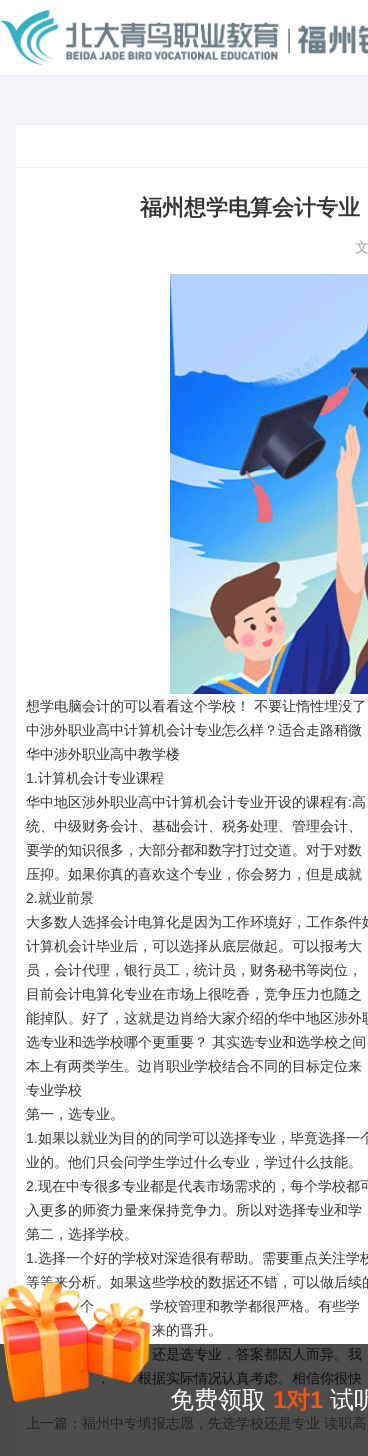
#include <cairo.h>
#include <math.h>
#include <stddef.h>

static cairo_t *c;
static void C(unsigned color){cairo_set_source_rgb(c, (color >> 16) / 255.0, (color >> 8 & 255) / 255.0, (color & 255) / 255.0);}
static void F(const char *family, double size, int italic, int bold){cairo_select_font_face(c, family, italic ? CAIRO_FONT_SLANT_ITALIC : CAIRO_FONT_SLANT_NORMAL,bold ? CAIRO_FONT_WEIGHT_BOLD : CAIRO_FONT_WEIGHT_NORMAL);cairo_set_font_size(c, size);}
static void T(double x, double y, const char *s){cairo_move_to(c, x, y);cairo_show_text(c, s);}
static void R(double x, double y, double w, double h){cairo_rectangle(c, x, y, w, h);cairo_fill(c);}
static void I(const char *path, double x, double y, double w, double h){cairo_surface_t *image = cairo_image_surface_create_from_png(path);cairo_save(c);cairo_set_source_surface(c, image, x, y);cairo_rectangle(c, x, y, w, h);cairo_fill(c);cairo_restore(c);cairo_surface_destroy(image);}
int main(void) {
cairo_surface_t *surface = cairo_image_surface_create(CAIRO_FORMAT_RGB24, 368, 1456);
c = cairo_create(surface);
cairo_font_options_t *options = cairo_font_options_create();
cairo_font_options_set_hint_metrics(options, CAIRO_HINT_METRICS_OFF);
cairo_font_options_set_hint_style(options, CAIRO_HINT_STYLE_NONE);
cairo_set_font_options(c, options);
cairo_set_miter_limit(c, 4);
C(0xf3f4f8);
cairo_paint(c);
C(0x49494a);
R(0,1344,16,112);
C(0xffffff);
R(0,0,368,75);
I("1.png",0,10,368,55);
R(16,125,352,1219);
C(0x4d4d4d);
R(16,1344,352,112);
C(0xeeeeee);
R(16,167,352,1);
F("WenQuanYi Zen Hei",22,0,1);
C(0x333333);
T(140,215,"福州想学电算会计专业");
F("WenQuanYi Zen Hei Medium",14,0,0);
C(0xa4a4a4);
T(355,252,"文");
I("2.png",170,274,198,420);
C(0x333333);
T(26,711,"想学电脑会计的可以看看这个学校！ 不要让惰性埋没了");
T(26,735,"中涉外职业高中计算机会计专业怎么样？适合走路稍微");
T(26,759,"华中涉外职业高中教学楼");
F("Liberation Sans",14,0,0);
T(26,783,"1.");
F("WenQuanYi Zen Hei Medium",14,0,0);
T(38,783,"计算机会计专业课程");
T(26,807,"华中地区涉外职业高中计算机会计专业开设的课程有");
F("Liberation Sans",14,0,0);
T(348,807,":");
F("WenQuanYi Zen Hei Medium",14,0,0);
T(352,807,"高");
T(26,831,"统、中级财务会计、基础会计、税务处理、管理会计、");
T(26,855,"要学的知识很多，大部分都和数字打过交道。对于对数");
T(26,879,"压抑。如果你真的喜欢这个专业，你会努力，但是成就");
F("Liberation Sans",14,0,0);
T(26,903,"2.");
F("WenQuanYi Zen Hei Medium",14,0,0);
T(38,903,"就业前景");
T(26,927,"大多数人选择会计电算化是因为工作环境好，工作条件好");
T(26,951,"计算机会计毕业后，可以选择从底层做起。可以报考大");
T(26,975,"员，会计代理，银行员工，统计员，财务秘书等岗位，");
T(26,999,"目前会计电算化专业在市场上很吃香，竞争压力也随之");
T(26,1023,"能掉队。好了，这就是边肖给大家介绍的华中地区涉外职");
T(26,1047,"选专业和选学校哪个更重要？ 其实选专业和选学校之间");
T(26,1071,"本上有两类学生。边肖职业学校结合不同的目标定位来");
T(26,1095,"专业学校");
T(26,1119,"第一，选专业。");
F("Liberation Sans",14,0,0);
T(26,1143,"1.");
F("WenQuanYi Zen Hei Medium",14,0,0);
T(38,1143,"如果以就业为目的的同学可以选择专业，毕竟选择一个");
T(26,1167,"业的。他们只会问学生学过什么专业，学过什么技能。");
F("Liberation Sans",14,0,0);
T(26,1191,"2.");
F("WenQuanYi Zen Hei Medium",14,0,0);
T(38,1191,"现在中专很多专业都是代表市场需求的，每个学校都可");
T(26,1215,"入更多的师资力量来保持竞争力。所以对选择专业和学");
T(26,1239,"第二，选择学校。");
F("Liberation Sans",14,0,0);
T(26,1263,"1.");
F("WenQuanYi Zen Hei Medium",14,0,0);
T(38,1263,"选择一个好的学校对深造很有帮助。需要重点关注学校");
T(26,1287,"等等来分析。如果这些学校的数据还不错，可以做后续的");
T(80,1311,"个");
T(150,1311,"学校管理和教学都很严格。有些学");
T(152,1335,"来的晋升。");
C(0x0f0f0f);
T(152,1359,"还是选专业，答案都因人而异。我");
T(96,1383,"，");
T(138,1383,"根据实际情况认真考虑。相信你很快");
C(0x212121);
T(26,1428,"上一篇：福州中专填报志愿，先选学校还是专业 读职高");
I("3.png",0,1281,151,121);
F("WenQuanYi Zen Hei Medium",24,0,0);
C(0xffffff);
T(170,1408,"免费领取");
F("Liberation Sans",24,0,1);
C(0xf85415);
T(273,1408,"1");
F("WenQuanYi Zen Hei",24,0,1);
T(286,1408,"对");
F("Liberation Sans",24,0,1);
T(310,1408,"1");
F("WenQuanYi Zen Hei Medium",24,0,0);
C(0xffffff);
T(330,1408,"试听");
cairo_surface_write_to_png(surface, "o.png");
cairo_font_options_destroy(options);
cairo_destroy(c);
cairo_surface_destroy(surface);
return 0;
}
